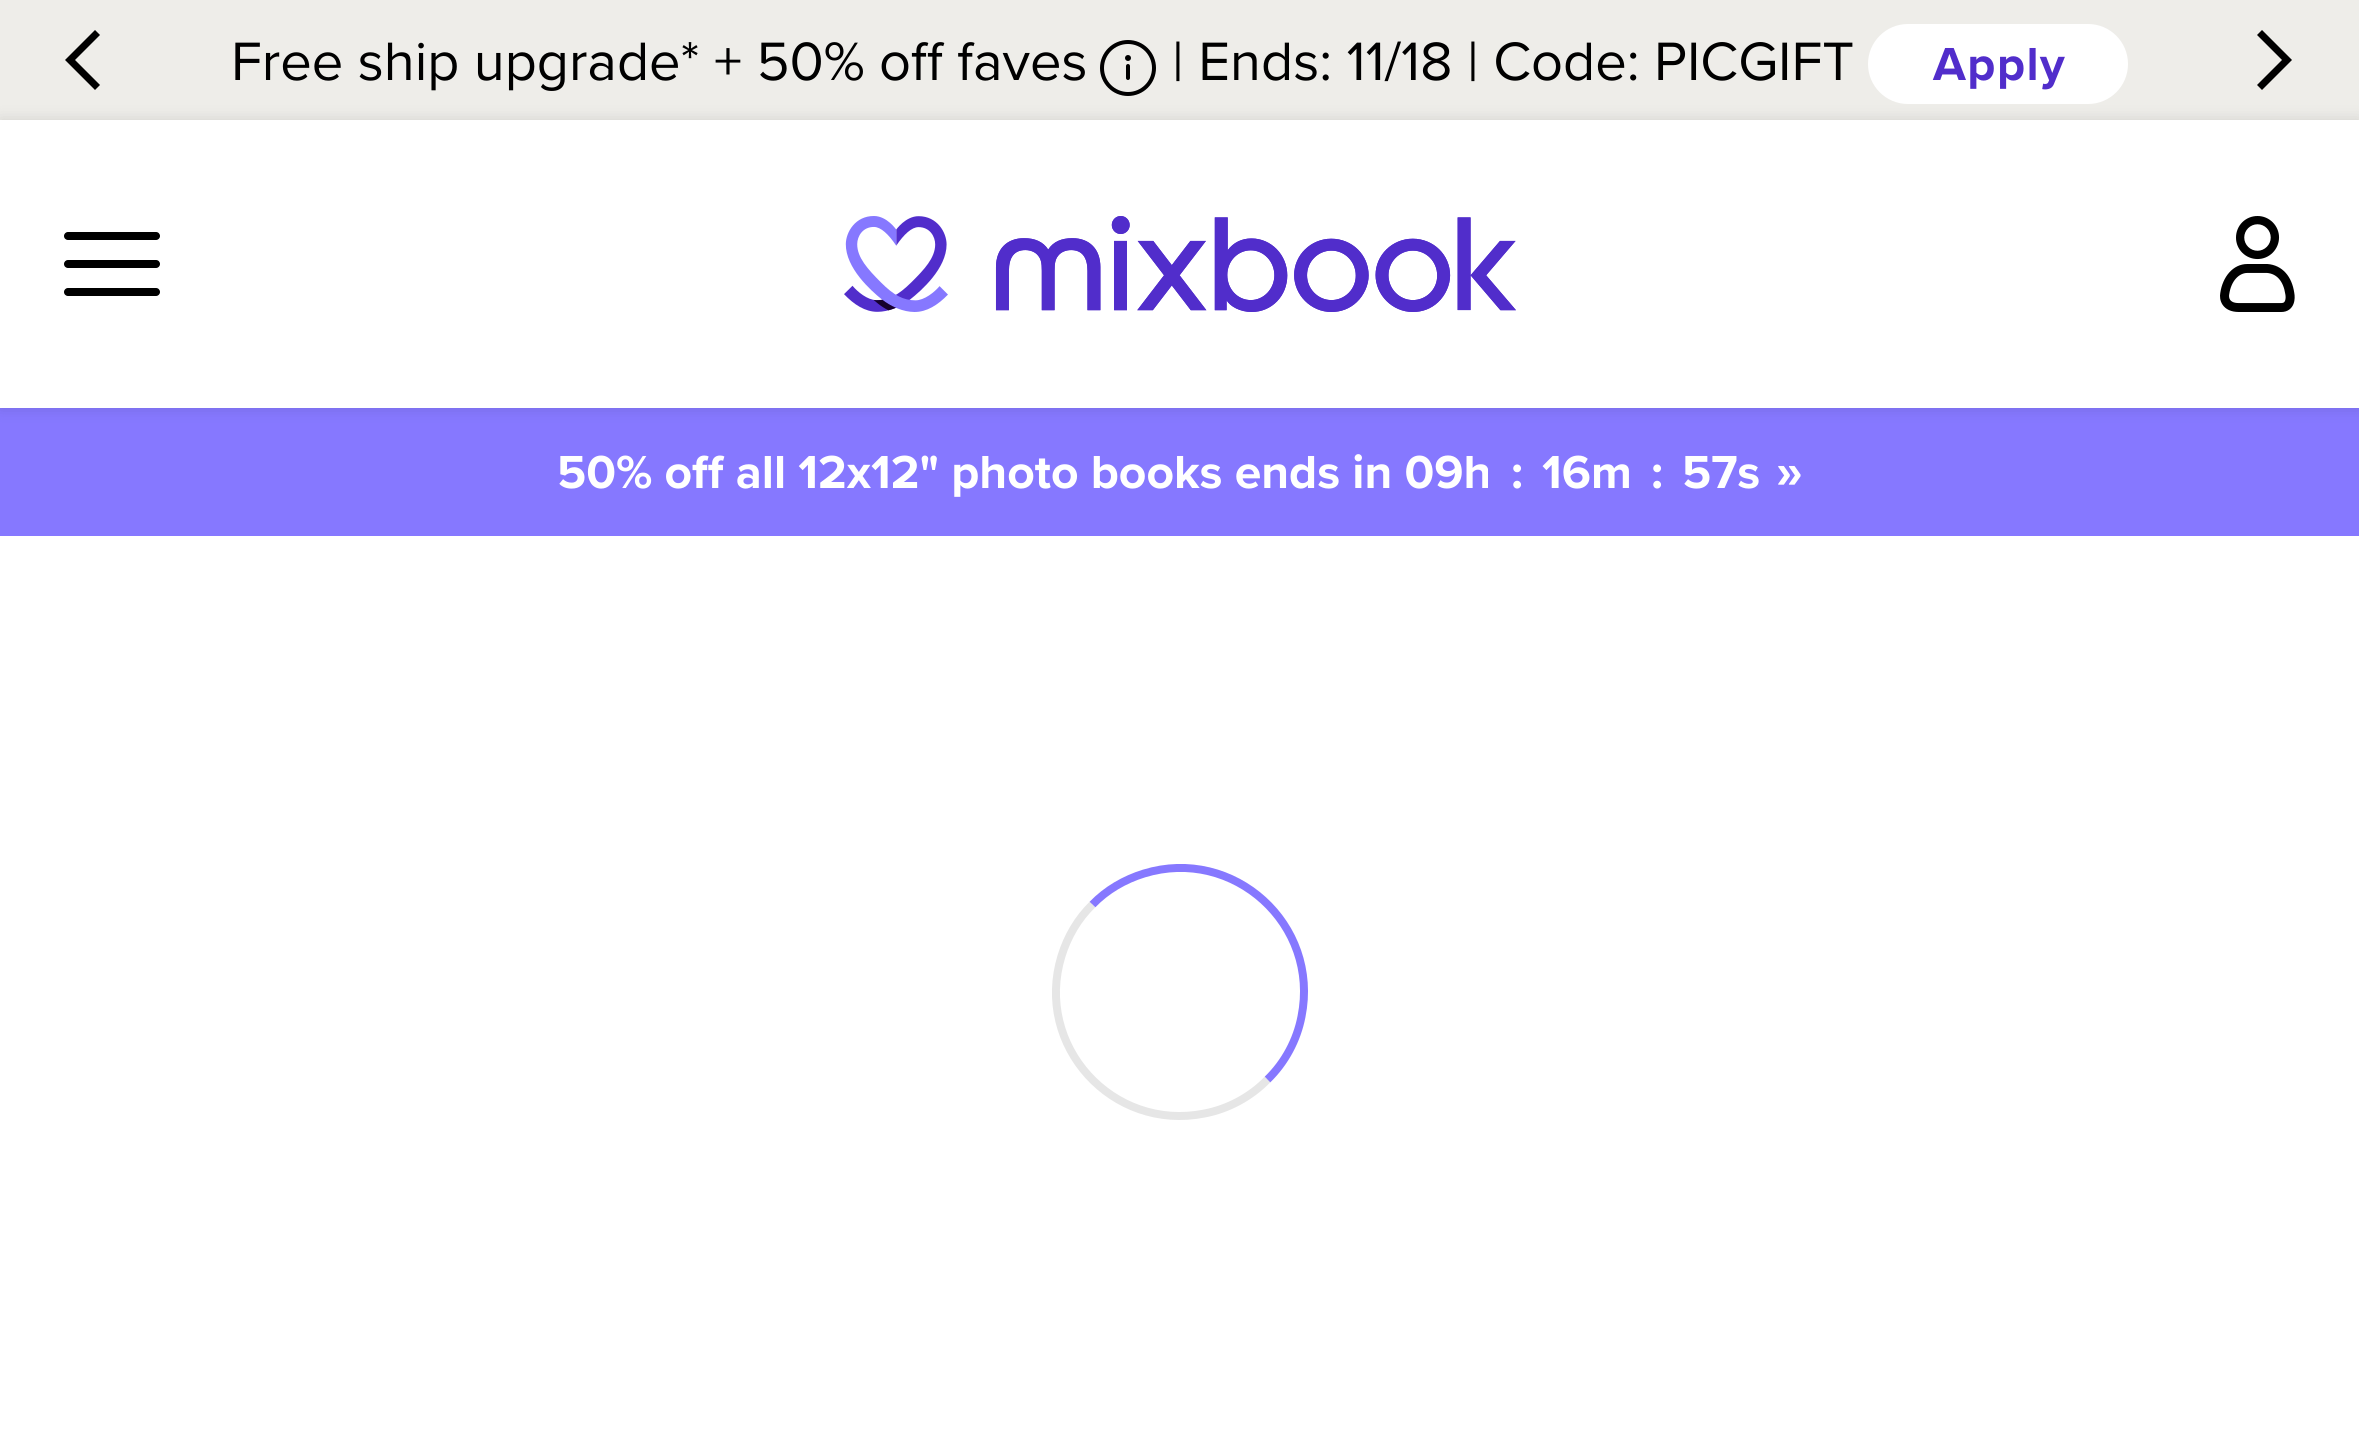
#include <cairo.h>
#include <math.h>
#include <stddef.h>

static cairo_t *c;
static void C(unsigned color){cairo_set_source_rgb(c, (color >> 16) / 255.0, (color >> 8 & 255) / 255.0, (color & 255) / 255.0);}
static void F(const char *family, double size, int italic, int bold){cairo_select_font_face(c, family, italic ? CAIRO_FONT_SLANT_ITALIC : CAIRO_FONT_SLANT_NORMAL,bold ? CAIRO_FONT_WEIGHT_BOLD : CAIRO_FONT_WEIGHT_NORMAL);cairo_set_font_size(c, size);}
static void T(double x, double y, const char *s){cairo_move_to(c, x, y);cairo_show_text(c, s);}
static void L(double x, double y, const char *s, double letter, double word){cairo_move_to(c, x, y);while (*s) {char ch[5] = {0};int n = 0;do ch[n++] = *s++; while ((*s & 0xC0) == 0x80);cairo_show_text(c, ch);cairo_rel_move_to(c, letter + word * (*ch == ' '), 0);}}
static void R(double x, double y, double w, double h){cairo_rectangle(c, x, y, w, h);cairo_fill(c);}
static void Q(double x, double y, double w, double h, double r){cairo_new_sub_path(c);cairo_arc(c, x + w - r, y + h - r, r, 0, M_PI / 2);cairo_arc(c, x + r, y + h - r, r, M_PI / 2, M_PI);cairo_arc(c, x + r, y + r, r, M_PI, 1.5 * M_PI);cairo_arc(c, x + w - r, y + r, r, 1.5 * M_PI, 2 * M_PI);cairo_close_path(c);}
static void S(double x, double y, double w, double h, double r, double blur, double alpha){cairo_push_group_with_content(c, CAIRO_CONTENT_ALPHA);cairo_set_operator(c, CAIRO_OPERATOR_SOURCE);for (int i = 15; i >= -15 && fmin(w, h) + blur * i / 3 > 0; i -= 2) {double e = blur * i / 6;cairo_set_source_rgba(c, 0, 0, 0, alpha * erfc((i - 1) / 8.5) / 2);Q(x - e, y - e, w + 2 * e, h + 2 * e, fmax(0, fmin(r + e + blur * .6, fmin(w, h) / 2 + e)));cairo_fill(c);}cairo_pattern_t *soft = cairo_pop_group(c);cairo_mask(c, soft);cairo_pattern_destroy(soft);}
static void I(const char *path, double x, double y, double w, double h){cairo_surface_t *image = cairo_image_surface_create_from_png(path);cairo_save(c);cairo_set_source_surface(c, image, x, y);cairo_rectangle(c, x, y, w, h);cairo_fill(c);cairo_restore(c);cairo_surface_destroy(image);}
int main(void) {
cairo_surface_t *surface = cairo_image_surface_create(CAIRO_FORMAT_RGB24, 2359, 1446);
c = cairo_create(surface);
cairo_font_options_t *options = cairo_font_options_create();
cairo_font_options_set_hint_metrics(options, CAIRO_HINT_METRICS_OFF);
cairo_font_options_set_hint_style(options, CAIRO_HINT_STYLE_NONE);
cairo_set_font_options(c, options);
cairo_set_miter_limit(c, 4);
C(0xffffff);
cairo_paint(c);
C(0xeeede9);
R(0,0,2359,120);
C(0x000000);
cairo_new_path(c);
cairo_move_to(c,95,90);
cairo_line_to(c,100,85);
cairo_line_to(c,75,60);
cairo_line_to(c,100,35);
cairo_line_to(c,95,30);
cairo_line_to(c,65,60);
cairo_close_path(c);
cairo_fill(c);
F("Proxima Nova",56,0,0);
T(231,80,"Free ship upgrade* + 50% off faves");
I("1.png",1100,40,56,56);
T(1172,80,"| Ends: 11/18 | Code: PICGIFT");
C(0xffffff);
Q(1868,24,260,80,40);
cairo_fill(c);
F("Proxima Nova",48,0,1);
C(0x512dcb);
L(1933,80,"Apply",1.5,0);
C(0x000000);
cairo_new_path(c);
cairo_move_to(c,2262,30);
cairo_line_to(c,2257,35);
cairo_line_to(c,2282,60);
cairo_line_to(c,2257,85);
cairo_line_to(c,2262,90);
cairo_line_to(c,2292,60);
cairo_close_path(c);
cairo_fill(c);
C(0x8678ff);
R(0,408,2359,128);
cairo_save(c);
cairo_set_fill_rule(c,CAIRO_FILL_RULE_EVEN_ODD);
cairo_new_path(c);
cairo_move_to(c,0,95);
cairo_line_to(c,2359,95);
cairo_line_to(c,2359,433);
cairo_line_to(c,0,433);
cairo_close_path(c);
cairo_move_to(c,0,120);
cairo_line_to(c,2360,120);
cairo_line_to(c,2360,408);
cairo_line_to(c,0,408);
cairo_close_path(c);
cairo_clip(c);
C(0x000000);
S(0,120,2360,288,0,8,.12);
cairo_restore(c);
C(0x000000);
Q(64,232,96,8,4);
cairo_fill(c);
Q(64,260,96,8,4);
cairo_fill(c);
Q(64,288,96,8,4);
cairo_fill(c);
I("2.png",844,216,672,96);
I("3.png",2220,216,75,96);
C(0xffffff);
T(557,488,"50% off all 12x12\" photo books ends in 09h");
T(1511,488,":");
T(1542,488,"16m");
T(1651,488,":");
T(1682,488,"57s");
F("Liberation Sans",48,0,1);
T(1776,488,"»");
cairo_new_path(c);
cairo_move_to(c,1092.5,904.5);
cairo_curve_to(c,1106.5,890,1124.5,879.5,1144,873.5);
cairo_curve_to(c,1233.5,846,1320,924.5,1301.5,1016.5);
cairo_curve_to(c,1297,1040,1285,1062.5,1267.5,1079.5);
C(0x8678ff);
cairo_set_line_width(c,8);
cairo_stroke(c);
cairo_new_path(c);
cairo_move_to(c,1267.5,1079.5);
cairo_curve_to(c,1250.5,1097,1228,1109,1204.5,1113.5);
cairo_curve_to(c,1112.5,1132,1034,1045.5,1061.5,956);
cairo_curve_to(c,1067.5,936.5,1078,918.5,1092.5,904.5);
cairo_set_source_rgba(c,0,0,0,0.1);
cairo_stroke(c);
cairo_surface_write_to_png(surface, "o.png");
cairo_font_options_destroy(options);
cairo_destroy(c);
cairo_surface_destroy(surface);
return 0;
}
